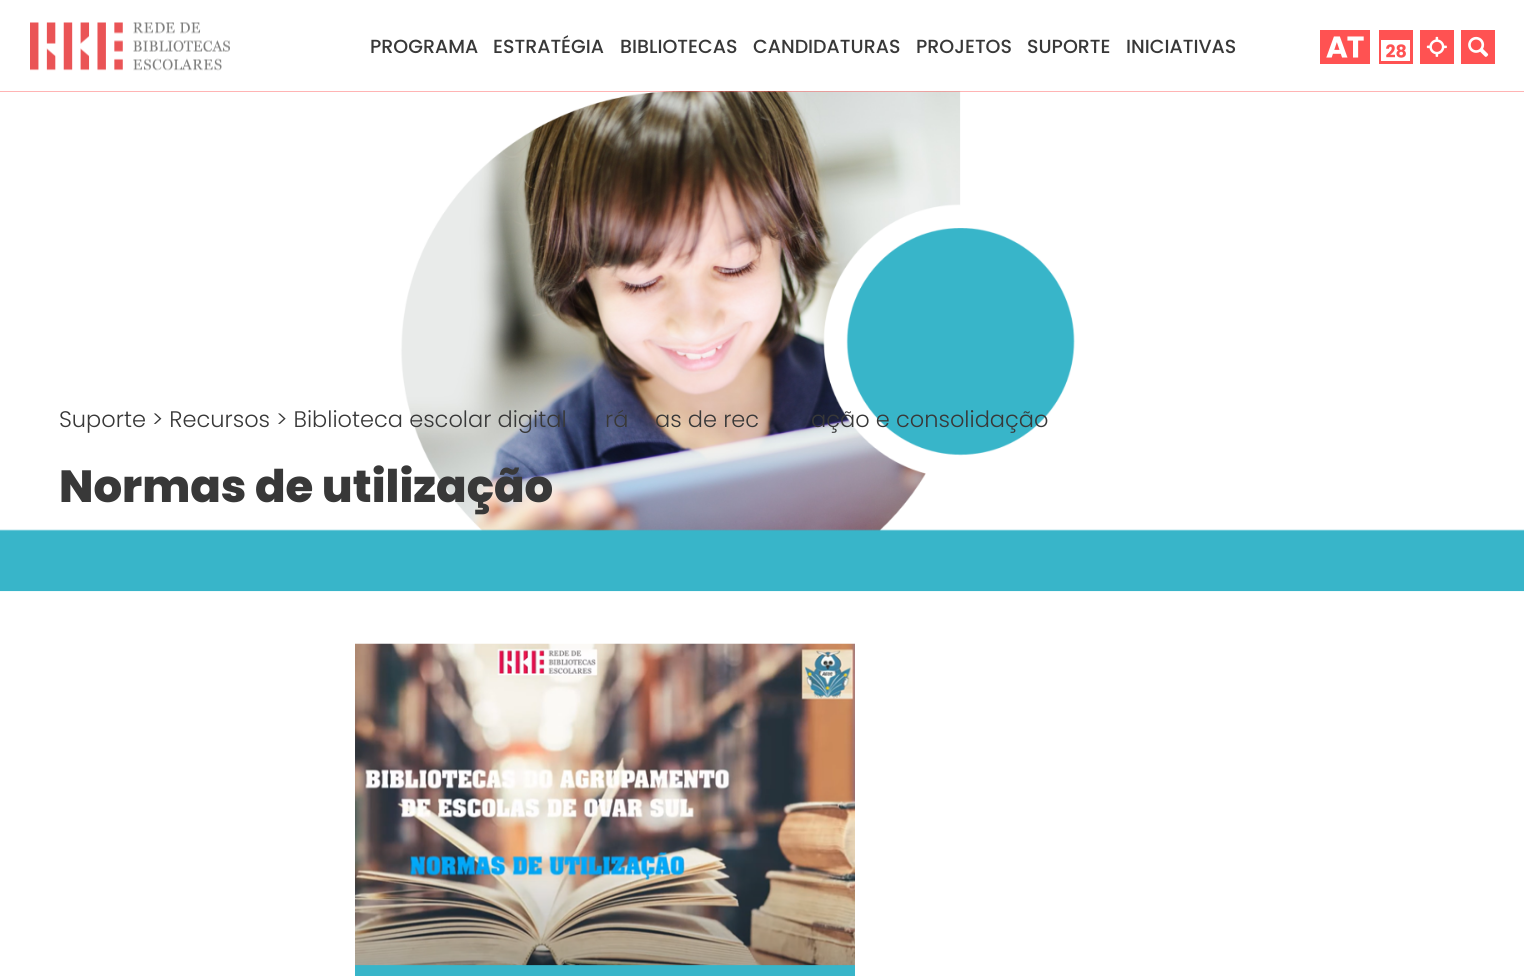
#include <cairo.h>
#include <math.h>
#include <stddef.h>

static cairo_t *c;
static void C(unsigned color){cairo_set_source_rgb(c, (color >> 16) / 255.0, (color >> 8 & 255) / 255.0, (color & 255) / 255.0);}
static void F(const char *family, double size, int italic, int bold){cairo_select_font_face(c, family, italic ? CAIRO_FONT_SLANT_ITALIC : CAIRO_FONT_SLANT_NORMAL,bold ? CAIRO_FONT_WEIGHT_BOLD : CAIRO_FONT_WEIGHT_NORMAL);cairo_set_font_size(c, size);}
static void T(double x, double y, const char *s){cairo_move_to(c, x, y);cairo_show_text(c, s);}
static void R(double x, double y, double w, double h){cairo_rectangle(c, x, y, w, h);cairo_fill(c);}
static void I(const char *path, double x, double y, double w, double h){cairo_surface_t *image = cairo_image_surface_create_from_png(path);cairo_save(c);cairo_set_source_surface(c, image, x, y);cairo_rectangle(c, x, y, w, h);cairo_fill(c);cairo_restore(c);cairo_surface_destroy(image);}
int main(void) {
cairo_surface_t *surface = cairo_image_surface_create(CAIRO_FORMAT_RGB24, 1524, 976);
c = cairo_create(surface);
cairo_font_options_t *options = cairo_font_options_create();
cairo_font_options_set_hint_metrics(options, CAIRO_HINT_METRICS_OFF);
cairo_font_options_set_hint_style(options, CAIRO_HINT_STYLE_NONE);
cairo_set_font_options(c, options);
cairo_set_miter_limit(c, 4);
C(0xffffff);
cairo_paint(c);
I("1.png",30,22,200,49);
F("Poppins Medium",19,0,0);
C(0x383838);
T(370,53,"PROGRAMA");
T(493,53,"ESTRATÉGIA");
T(620,53,"BIBLIOTECAS");
T(753,53,"CANDIDATURAS");
T(916,53,"PROJETOS");
T(1027,53,"SUPORTE");
T(1126,53,"INICIATIVAS");
I("2.png",1320,30,50,34);
I("3.png",1379,30,34,34);
I("4.png",1420,30,34,34);
I("5.png",1461,30,34,34);
C(0xff5252);
R(0,91,1524,1);
I("6.png",0,91,1524,501);
F("Poppins Light",22.5,0,0);
C(0x383838);
T(59,427,"Suporte > Recursos > Biblioteca escolar digital");
T(605,427,"rá");
T(655,427,"as de rec");
T(811,427,"ação e consolidação");
F("Poppins ExtraBold",45,0,0);
T(59,502,"Normas de utilização");
I("7.png",355,643,500,333);
cairo_surface_write_to_png(surface, "o.png");
cairo_font_options_destroy(options);
cairo_destroy(c);
cairo_surface_destroy(surface);
return 0;
}
